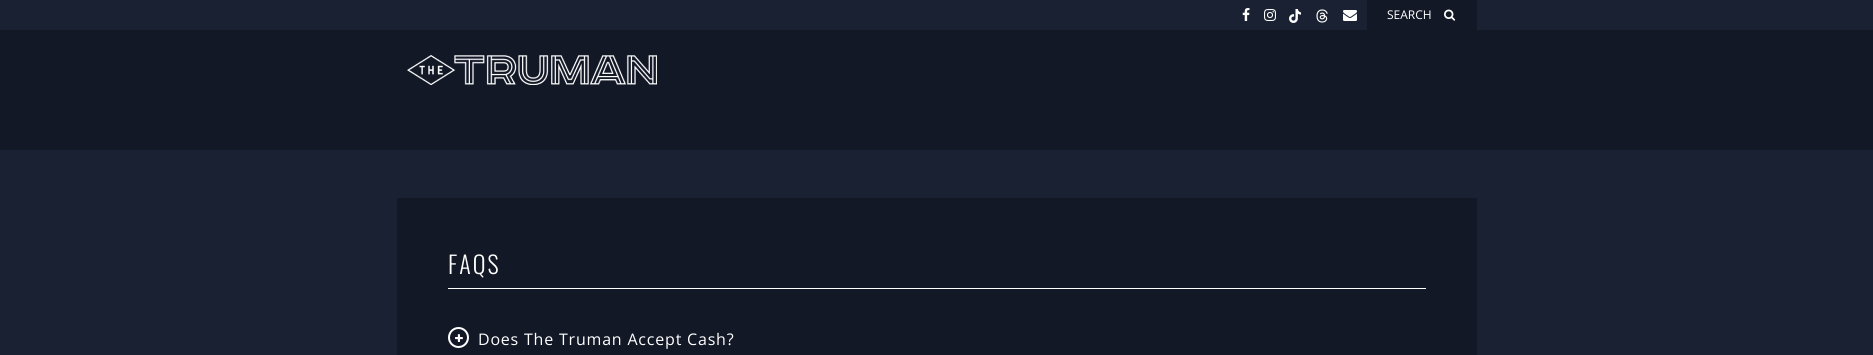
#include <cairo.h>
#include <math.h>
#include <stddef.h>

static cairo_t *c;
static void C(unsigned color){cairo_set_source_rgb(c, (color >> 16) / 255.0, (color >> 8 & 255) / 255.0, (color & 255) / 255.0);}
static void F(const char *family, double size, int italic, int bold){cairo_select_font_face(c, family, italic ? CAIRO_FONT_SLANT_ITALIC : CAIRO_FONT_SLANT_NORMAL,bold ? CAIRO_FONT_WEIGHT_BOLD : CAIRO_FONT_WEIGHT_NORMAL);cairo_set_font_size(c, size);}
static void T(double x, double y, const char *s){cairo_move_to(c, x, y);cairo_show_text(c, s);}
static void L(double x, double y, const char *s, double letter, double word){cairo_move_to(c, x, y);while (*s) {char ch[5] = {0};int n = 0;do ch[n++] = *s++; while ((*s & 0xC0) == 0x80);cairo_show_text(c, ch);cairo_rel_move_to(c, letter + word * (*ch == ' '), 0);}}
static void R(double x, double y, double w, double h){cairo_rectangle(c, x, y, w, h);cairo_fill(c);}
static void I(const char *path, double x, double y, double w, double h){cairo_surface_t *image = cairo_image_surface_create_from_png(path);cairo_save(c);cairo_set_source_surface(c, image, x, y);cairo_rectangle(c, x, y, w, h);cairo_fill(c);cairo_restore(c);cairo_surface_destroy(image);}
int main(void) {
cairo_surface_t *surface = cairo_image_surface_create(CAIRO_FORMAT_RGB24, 1873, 355);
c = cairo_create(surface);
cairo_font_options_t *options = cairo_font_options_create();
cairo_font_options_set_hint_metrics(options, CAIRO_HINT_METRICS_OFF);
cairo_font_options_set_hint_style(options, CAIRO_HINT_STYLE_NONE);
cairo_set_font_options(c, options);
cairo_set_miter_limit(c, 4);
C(0x192132);
cairo_paint(c);
I("1.png",1242,8,8,13);
I("2.png",1264,9,12,12);
I("3.png",1289,9,12,14);
I("4.png",1316,9,12,14);
I("5.png",1343,10,14,11);
C(0x121826);
R(1367,0,110,30);
F("Open Sans",12,0,0);
C(0xffffff);
T(1387,19,"SEARCH");
I("6.png",1444,9,12,12);
C(0x121826);
R(0,30,1873,120);
I("7.png",407,55,250,30);
R(397,198,1080,157);
C(0xffffff);
R(448,288,978,1);
F("Oswald Light",24,0,0);
L(448,274,"FAQS",2,0);
cairo_new_path(c);
cairo_arc(c,458.5,337.5,9.5,0,2 * M_PI);
cairo_stroke(c);
I("8.png",455,334,8,8);
F("Open Sans",16,0,0);
L(478,345,"Does The Truman Accept Cash?",.8,0);
cairo_surface_write_to_png(surface, "o.png");
cairo_font_options_destroy(options);
cairo_destroy(c);
cairo_surface_destroy(surface);
return 0;
}
